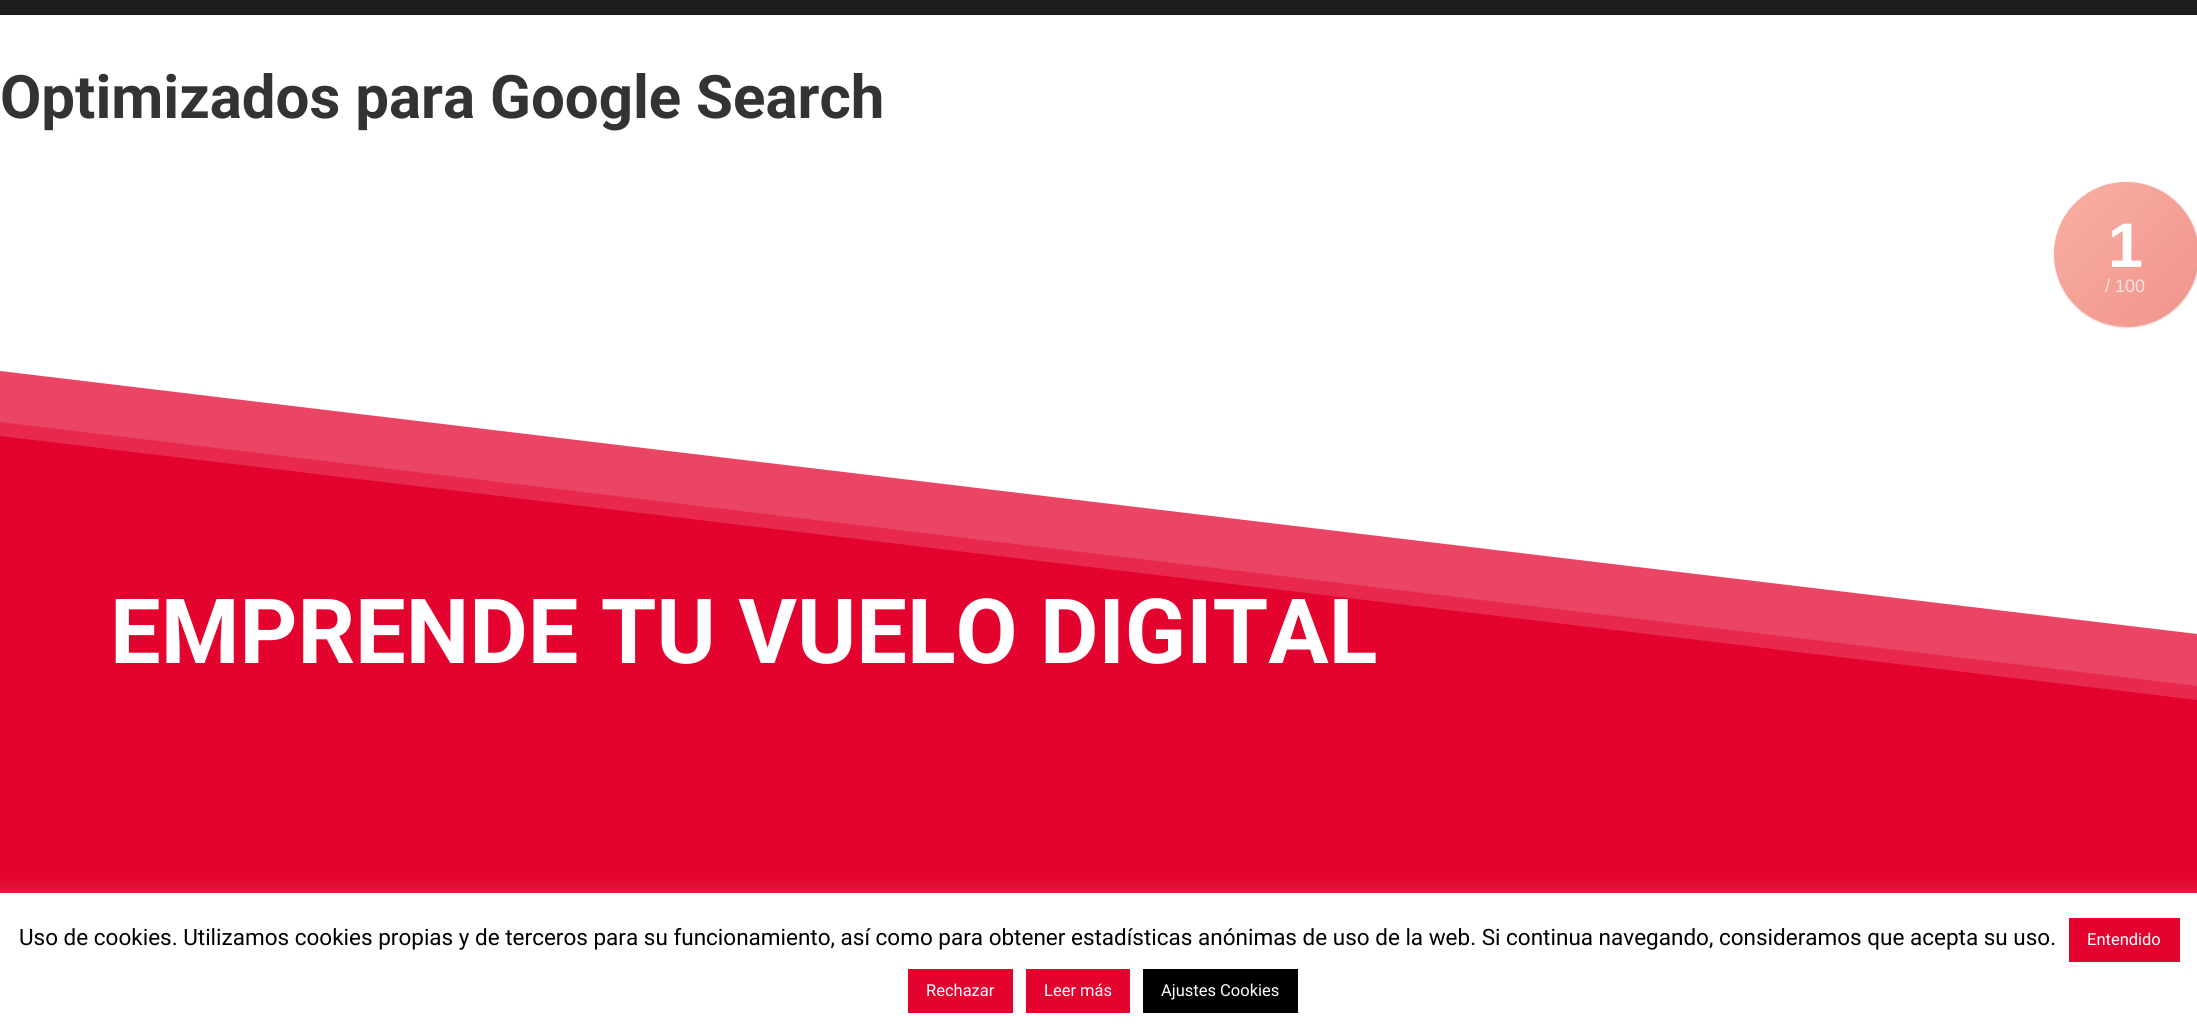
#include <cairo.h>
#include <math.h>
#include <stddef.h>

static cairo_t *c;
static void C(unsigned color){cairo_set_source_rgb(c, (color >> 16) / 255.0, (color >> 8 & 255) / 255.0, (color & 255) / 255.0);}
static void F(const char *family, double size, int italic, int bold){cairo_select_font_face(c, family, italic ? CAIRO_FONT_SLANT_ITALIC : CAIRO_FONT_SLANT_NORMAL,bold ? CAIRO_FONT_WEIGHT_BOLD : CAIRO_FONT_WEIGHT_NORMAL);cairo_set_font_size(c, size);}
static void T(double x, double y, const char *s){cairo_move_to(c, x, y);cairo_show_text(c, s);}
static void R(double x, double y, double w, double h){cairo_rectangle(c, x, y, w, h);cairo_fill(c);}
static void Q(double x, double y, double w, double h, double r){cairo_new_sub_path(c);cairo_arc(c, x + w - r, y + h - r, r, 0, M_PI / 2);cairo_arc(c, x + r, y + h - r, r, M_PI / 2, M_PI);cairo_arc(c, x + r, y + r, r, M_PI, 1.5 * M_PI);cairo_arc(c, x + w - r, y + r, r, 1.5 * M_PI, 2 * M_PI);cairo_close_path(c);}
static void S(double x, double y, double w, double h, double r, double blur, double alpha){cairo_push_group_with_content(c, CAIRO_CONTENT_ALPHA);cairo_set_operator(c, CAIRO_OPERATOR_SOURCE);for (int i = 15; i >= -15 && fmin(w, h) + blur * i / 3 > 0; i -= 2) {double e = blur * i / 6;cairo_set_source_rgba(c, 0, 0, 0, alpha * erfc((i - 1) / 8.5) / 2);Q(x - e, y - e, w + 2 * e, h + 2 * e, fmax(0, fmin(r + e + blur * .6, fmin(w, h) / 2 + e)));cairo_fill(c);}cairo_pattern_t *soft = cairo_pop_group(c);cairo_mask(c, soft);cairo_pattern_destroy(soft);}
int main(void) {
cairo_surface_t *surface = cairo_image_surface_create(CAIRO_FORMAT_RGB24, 2197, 1030);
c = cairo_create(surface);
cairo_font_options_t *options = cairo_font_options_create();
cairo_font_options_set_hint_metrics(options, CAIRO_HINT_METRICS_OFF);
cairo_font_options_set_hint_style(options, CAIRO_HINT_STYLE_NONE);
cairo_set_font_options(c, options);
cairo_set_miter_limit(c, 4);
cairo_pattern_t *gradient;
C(0xffffff);
cairo_paint(c);
C(0x1d1d1b);
R(0,0,2197,15);
F("Roboto",60,0,1);
C(0x333333);
T(0,118,"Optimizados para Google Search");
C(0xe48982);
S(2055,183,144,144,72,1,1);
gradient = cairo_pattern_create_linear(2054,182,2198,326);
cairo_pattern_add_color_stop_rgba(gradient,0,0.973,0.69,0.635,1);
cairo_pattern_add_color_stop_rgba(gradient,1,0.945,0.576,0.549,1);
cairo_set_source(c,gradient);
cairo_pattern_destroy(gradient);
cairo_arc(c,2126,254,72,0,2 * M_PI);
cairo_fill(c);
F("Liberation Sans",63,0,1);
C(0xffffff);
T(2108,267,"1");
F("Liberation Sans",18,0,0);
C(0xfce2df);
T(2105,292,"/ 100");
C(0xeb4565);
cairo_new_path(c);
cairo_move_to(c,0,887);
cairo_line_to(c,0,371);
cairo_line_to(c,2197,634);
cairo_line_to(c,2197,887);
cairo_close_path(c);
cairo_fill(c);
C(0xe8284d);
cairo_new_path(c);
cairo_move_to(c,0,861);
cairo_line_to(c,0,422);
cairo_line_to(c,2197,686);
cairo_line_to(c,2197,861);
cairo_close_path(c);
cairo_fill(c);
C(0xe4032e);
cairo_new_path(c);
cairo_move_to(c,0,843);
cairo_line_to(c,0,436);
cairo_line_to(c,2197,700);
cairo_line_to(c,2197,843);
cairo_close_path(c);
cairo_fill(c);
F("Roboto",90,0,1);
C(0xffffff);
T(110,663,"EMPRENDE TU VUELO DIGITAL");
C(0xe4032e);
R(0,843,2197,50);
C(0xacabab);
S(0,891,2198,138,0,7.5,.3);
C(0xffffff);
R(0,893,2197,137);
F("Roboto",22.5,0,0);
C(0x000000);
T(19,945,"Uso de cookies. Utilizamos cookies propias y de terceros para su funcionamiento, así como para obtener estadísticas anónimas de uso de la web. Si continua navegando, consideramos que acepta su uso.");
C(0xe4032e);
R(2069,918,111,44);
F("Roboto",16.5,0,0);
C(0xffffff);
T(2087,945,"Entendido");
C(0xe4032e);
R(908,969,105,44);
C(0xffffff);
T(926,996,"Rechazar");
C(0xe4032e);
R(1026,969,104,44);
C(0xffffff);
T(1044,996,"Leer más");
C(0x000000);
R(1143,969,155,44);
C(0xffffff);
T(1161,996,"Ajustes Cookies");
cairo_surface_write_to_png(surface, "o.png");
cairo_font_options_destroy(options);
cairo_destroy(c);
cairo_surface_destroy(surface);
return 0;
}
